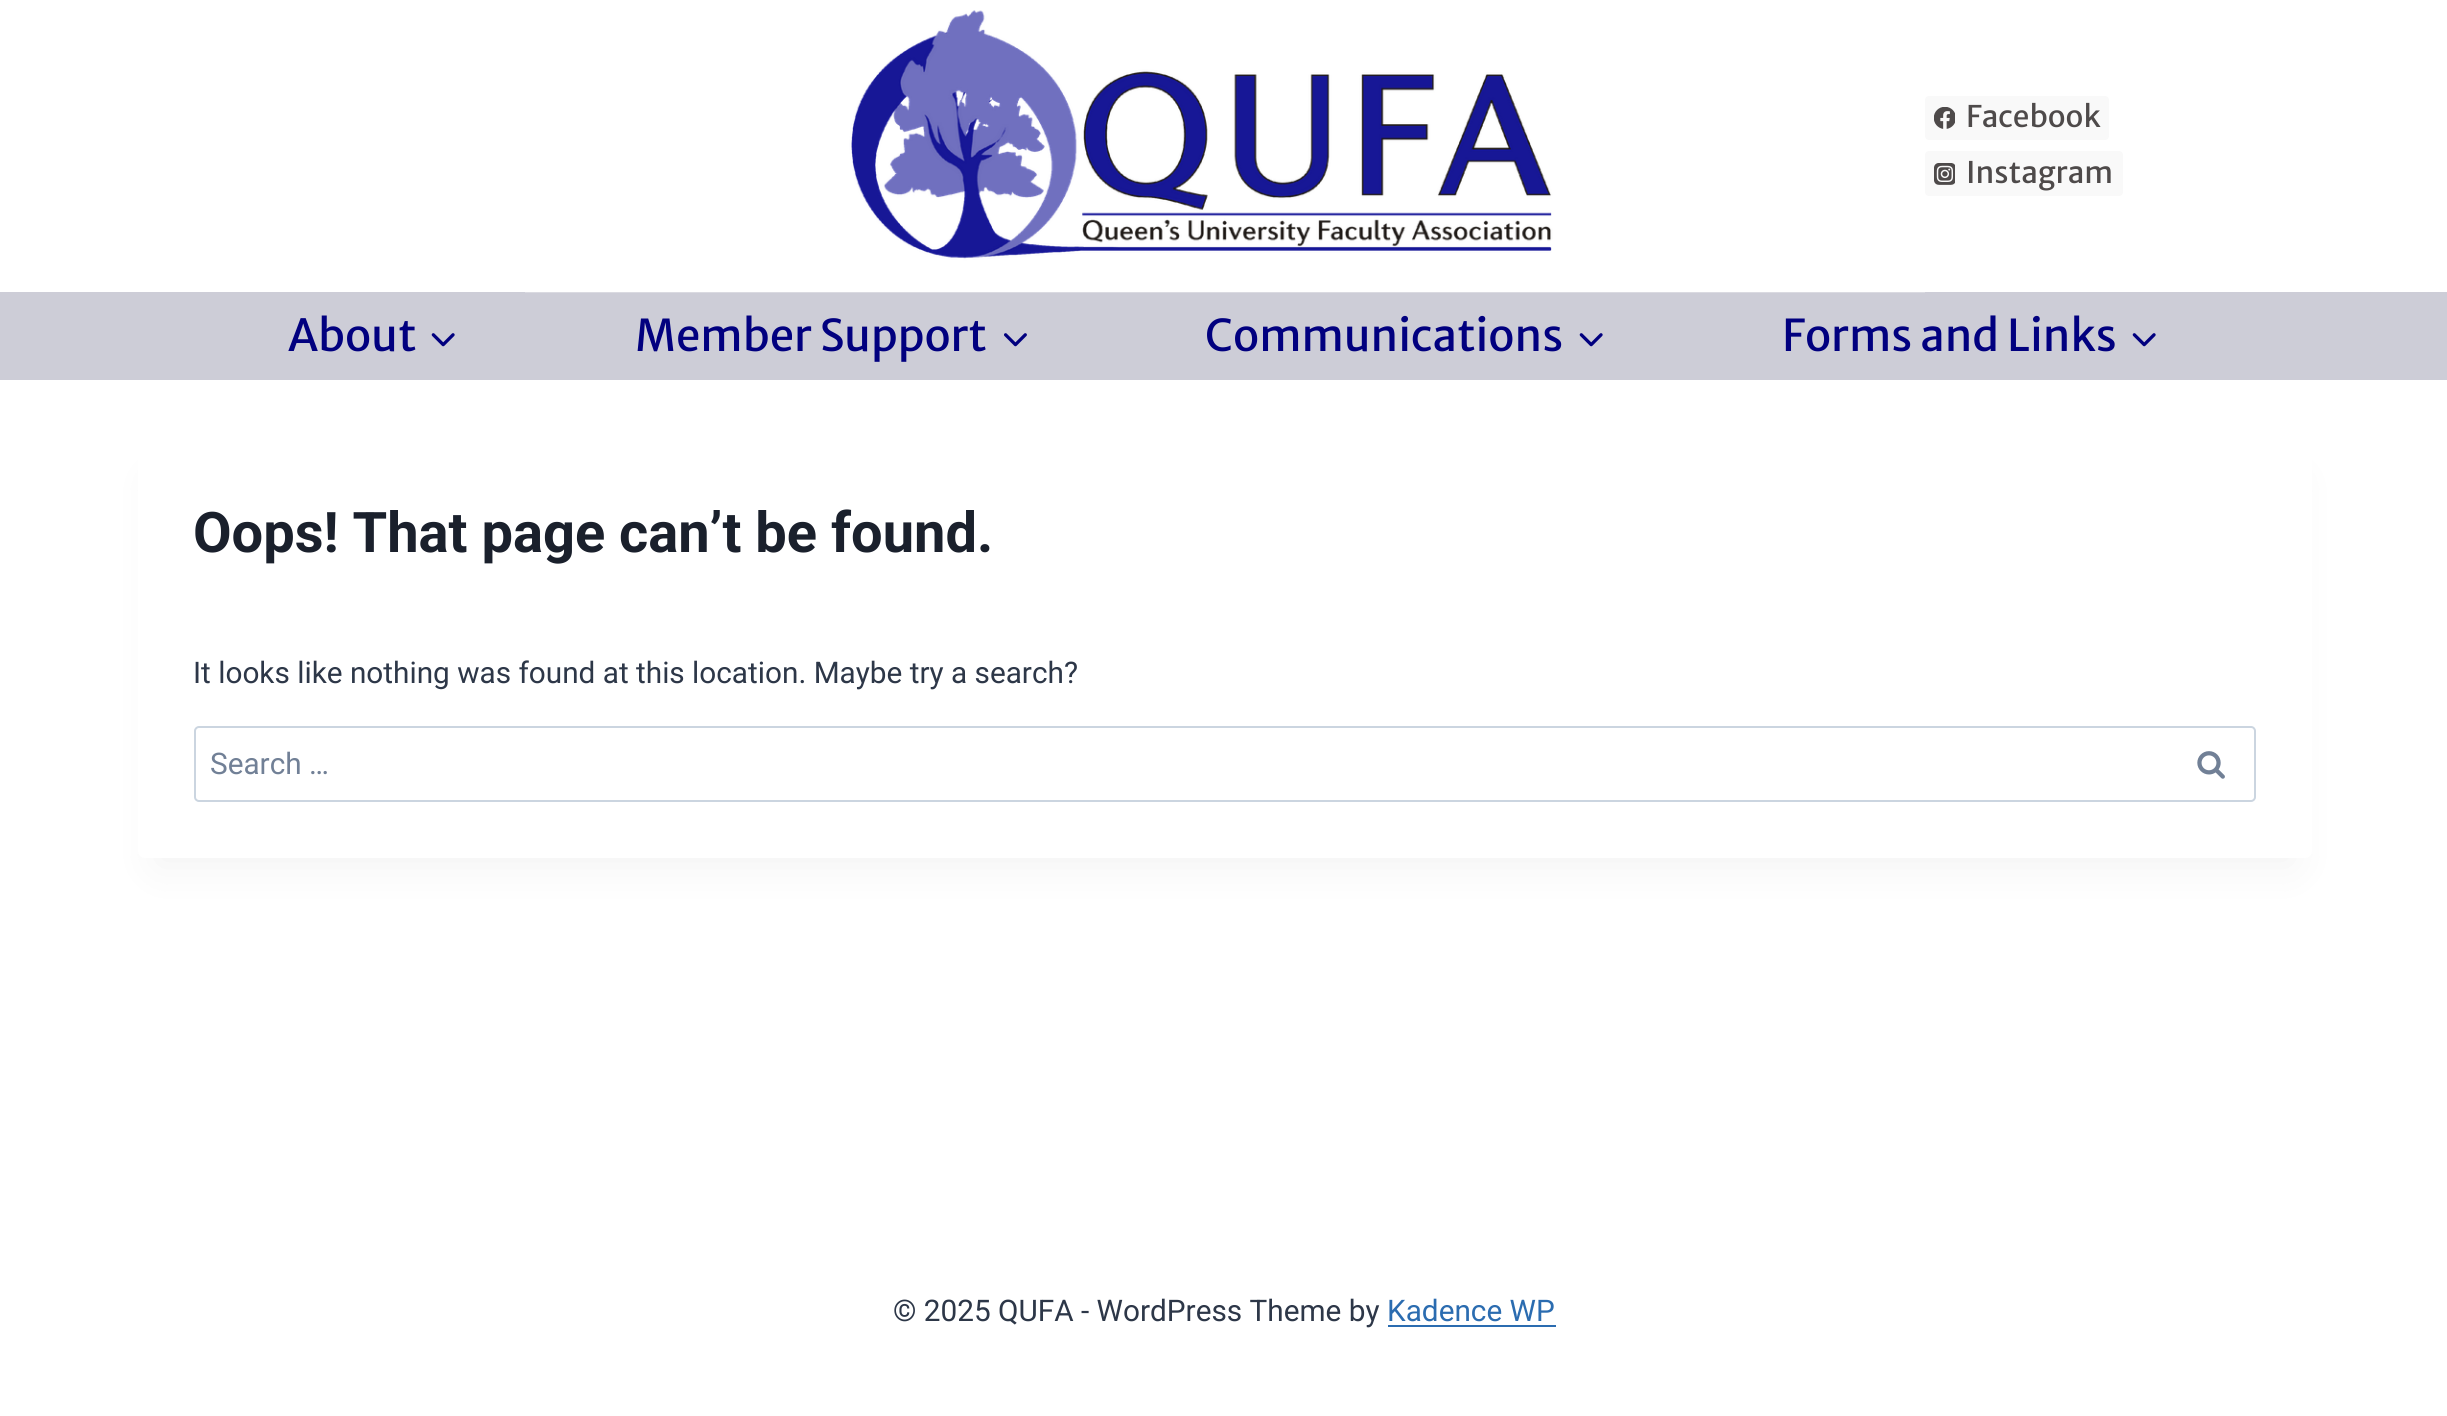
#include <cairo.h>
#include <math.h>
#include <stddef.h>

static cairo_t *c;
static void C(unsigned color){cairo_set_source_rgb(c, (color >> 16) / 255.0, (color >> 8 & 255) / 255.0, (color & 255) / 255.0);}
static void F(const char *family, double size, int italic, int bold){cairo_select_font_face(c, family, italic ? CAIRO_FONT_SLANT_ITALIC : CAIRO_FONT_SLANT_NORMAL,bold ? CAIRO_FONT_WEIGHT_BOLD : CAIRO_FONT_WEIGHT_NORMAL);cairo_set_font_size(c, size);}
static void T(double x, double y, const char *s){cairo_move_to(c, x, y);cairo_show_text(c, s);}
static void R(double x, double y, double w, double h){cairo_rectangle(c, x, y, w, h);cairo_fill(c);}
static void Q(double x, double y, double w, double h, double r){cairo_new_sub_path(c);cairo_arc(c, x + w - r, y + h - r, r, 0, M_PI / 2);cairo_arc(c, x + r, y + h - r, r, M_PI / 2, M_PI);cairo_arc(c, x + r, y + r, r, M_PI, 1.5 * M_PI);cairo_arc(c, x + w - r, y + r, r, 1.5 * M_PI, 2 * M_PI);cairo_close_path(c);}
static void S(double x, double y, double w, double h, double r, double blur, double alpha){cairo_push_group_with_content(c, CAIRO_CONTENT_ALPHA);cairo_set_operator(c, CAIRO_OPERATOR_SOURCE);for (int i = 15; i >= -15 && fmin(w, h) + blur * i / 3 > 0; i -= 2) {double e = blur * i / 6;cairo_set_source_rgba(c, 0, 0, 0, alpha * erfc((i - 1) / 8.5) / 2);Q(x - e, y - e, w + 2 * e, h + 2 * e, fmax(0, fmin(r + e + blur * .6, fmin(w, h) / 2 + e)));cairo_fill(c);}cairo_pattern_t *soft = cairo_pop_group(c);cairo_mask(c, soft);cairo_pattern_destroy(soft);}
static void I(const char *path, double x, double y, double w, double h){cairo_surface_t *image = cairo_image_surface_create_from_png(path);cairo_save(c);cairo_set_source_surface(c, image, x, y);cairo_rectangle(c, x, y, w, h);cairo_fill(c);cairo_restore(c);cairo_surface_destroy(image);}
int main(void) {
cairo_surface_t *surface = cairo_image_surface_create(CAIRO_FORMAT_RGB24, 2447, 1416);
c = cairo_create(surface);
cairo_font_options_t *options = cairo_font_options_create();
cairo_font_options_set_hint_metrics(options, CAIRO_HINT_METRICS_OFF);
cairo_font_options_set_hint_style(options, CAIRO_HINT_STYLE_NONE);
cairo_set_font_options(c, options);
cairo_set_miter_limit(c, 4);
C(0xffffff);
cairo_paint(c);
C(0xcdcdd7);
R(0,292,2447,88);
I("1.png",525,10,1400,283);
C(0xf9f9f9);
Q(1925,96,184,44,4);
cairo_fill(c);
I("2.png",1934,107,21,22);
F("Merriweather Sans",29.75,0,0);
C(0x4e4a4a);
T(1966,127,"Facebook");
C(0xf9f9f9);
Q(1925,151,198,45,4);
cairo_fill(c);
I("3.png",1934,163,21,22);
C(0x4e4a4a);
T(1966,183,"Instagram");
F("Merriweather Sans",43.75,0,0);
C(0x01007f);
T(288,351,"About");
I("4.png",431,333,24,14);
T(635,351,"Member Support");
I("5.png",1004,333,23,14);
T(1205,351,"Communications");
I("4.png",1579,333,24,14);
T(1782,351,"Forms and Links");
I("4.png",2132,333,24,14);
C(0x000000);
S(156,480,2138,386,0,22,.05);
C(0xffffff);
Q(138,436,2174,422,7);
cairo_fill(c);
F("Roboto",56,0,1);
C(0x1a202c);
T(193,552,"Oops! That page can’t be found.");
F("Roboto",29.75,0,0);
C(0x2d3748);
T(193,683,"It looks like nothing was found at this location. Maybe try a search?");
Q(195,727,2060,74,4);
C(0xcbd5e0);
cairo_stroke(c);
C(0x718096);
T(210,774,"Search …");
I("6.png",2197,751,28,28);
C(0x2d3748);
T(893,1321,"© 2025 QUFA - WordPress Theme by");
C(0x2b6cb0);
T(1387,1321,"Kadence WP");
R(1388,1325,168,2);
cairo_surface_write_to_png(surface, "o.png");
cairo_font_options_destroy(options);
cairo_destroy(c);
cairo_surface_destroy(surface);
return 0;
}
